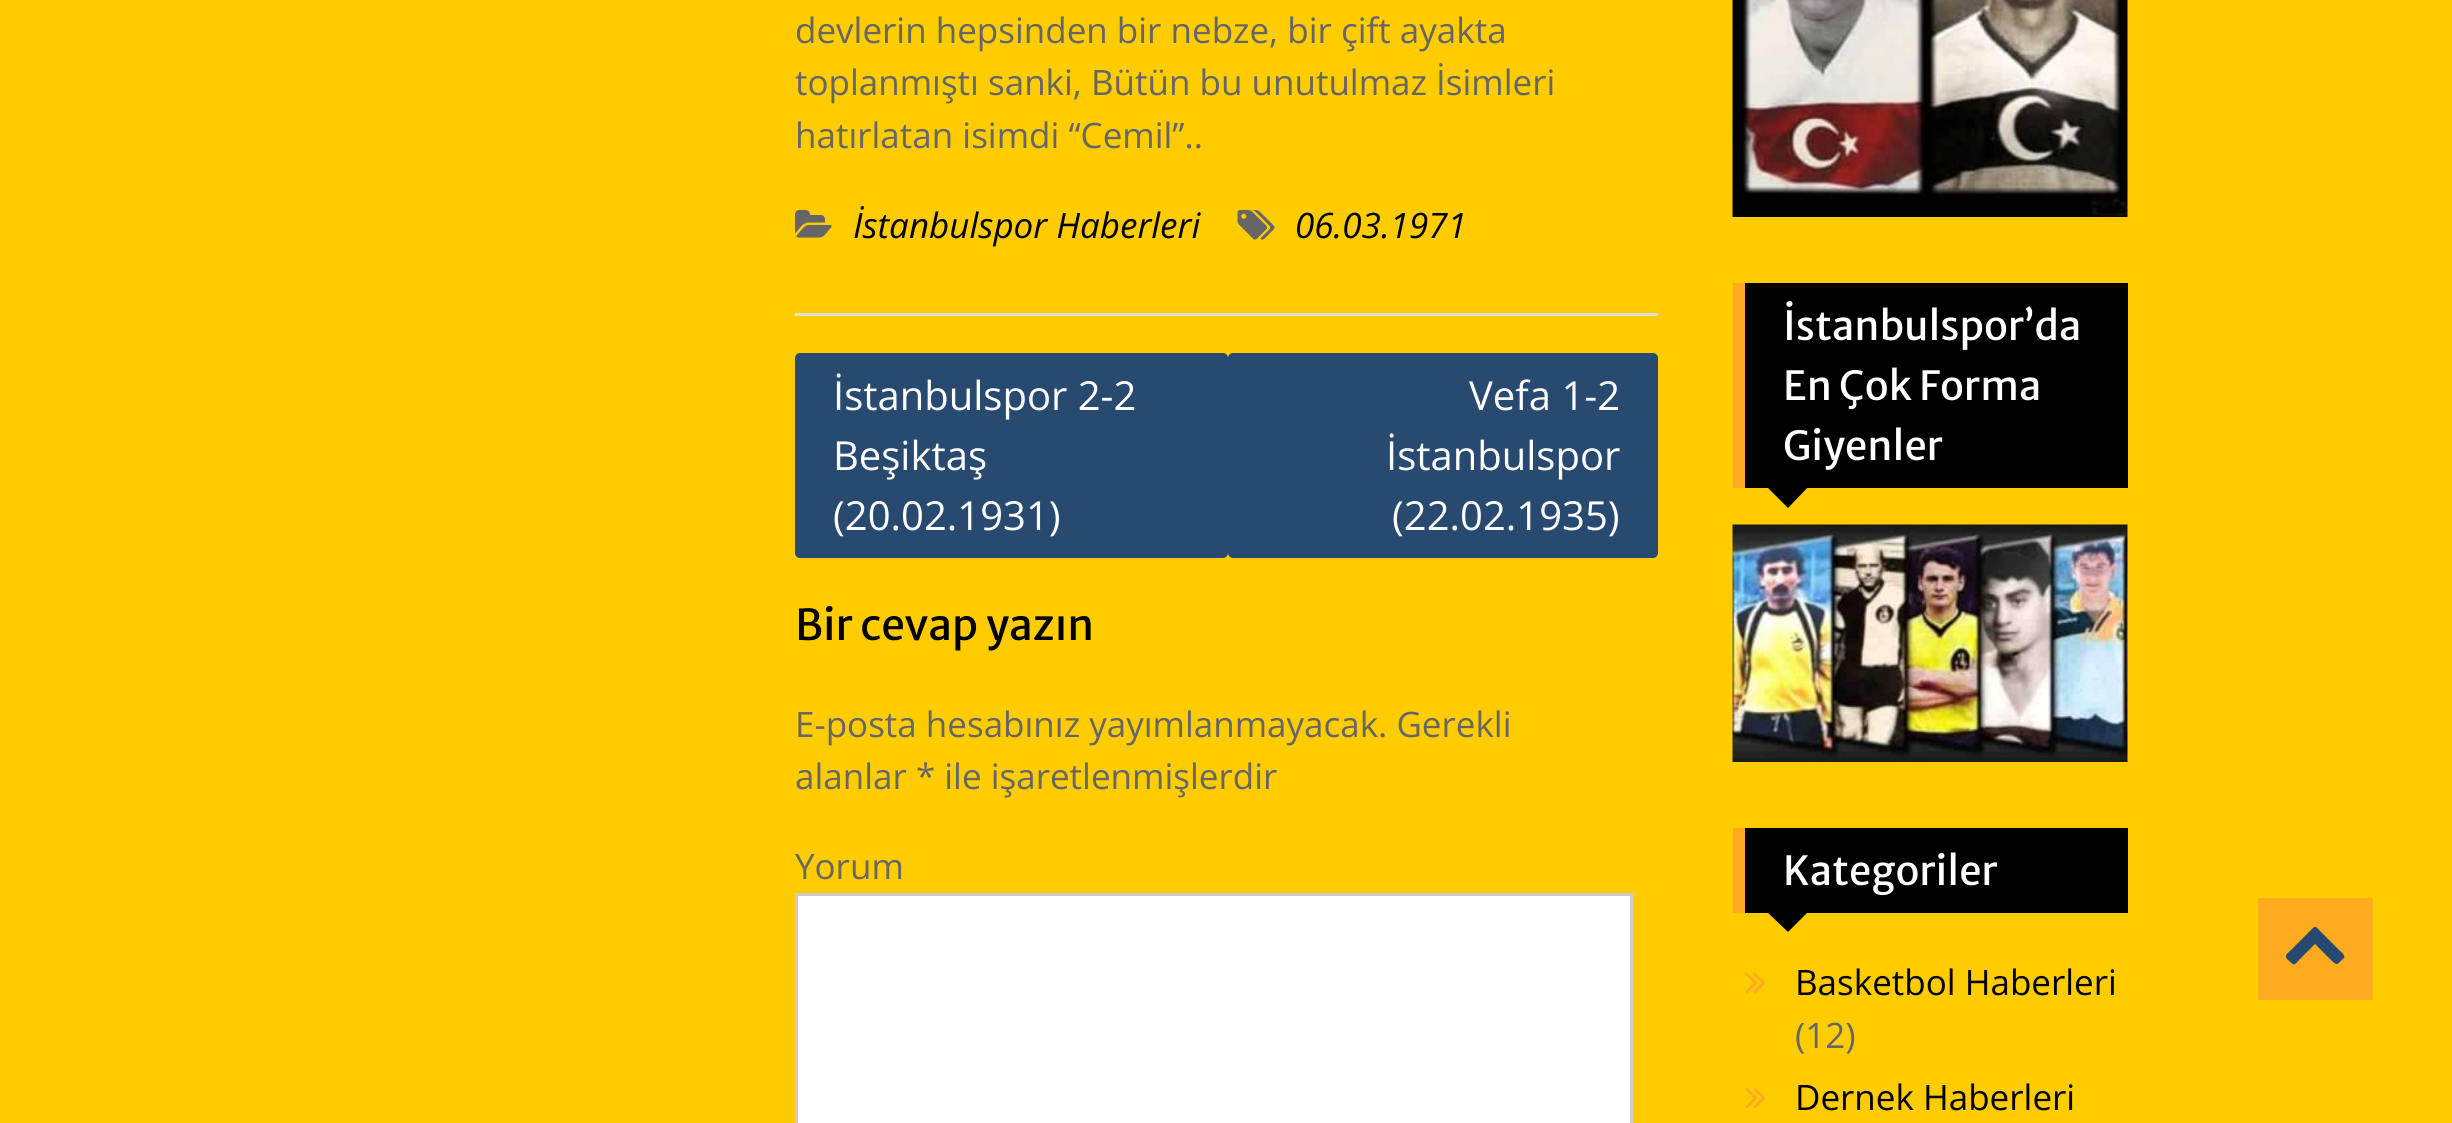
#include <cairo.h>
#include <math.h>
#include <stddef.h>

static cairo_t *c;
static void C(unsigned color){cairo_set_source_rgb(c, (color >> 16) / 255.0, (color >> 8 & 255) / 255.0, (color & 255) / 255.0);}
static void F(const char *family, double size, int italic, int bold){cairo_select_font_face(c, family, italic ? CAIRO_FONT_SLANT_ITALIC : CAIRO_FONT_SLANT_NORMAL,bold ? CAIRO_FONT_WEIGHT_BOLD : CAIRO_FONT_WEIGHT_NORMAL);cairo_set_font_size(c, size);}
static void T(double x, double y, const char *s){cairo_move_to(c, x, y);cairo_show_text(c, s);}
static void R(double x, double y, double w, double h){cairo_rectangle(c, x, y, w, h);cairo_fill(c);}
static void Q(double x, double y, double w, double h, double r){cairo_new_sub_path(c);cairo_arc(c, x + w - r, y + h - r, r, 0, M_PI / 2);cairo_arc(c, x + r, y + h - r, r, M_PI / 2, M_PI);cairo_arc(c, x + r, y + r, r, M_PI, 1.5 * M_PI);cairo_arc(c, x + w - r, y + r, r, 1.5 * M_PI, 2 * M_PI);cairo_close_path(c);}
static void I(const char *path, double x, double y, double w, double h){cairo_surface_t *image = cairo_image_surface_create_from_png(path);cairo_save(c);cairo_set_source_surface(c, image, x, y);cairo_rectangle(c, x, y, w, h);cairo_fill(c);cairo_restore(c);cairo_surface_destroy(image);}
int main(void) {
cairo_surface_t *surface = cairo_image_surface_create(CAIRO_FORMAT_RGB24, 2452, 1123);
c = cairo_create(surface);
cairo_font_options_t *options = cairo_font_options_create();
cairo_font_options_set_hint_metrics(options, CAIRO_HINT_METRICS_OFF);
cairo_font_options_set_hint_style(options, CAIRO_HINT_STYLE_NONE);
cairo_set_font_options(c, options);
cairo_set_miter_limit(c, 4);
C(0xffcc00);
cairo_paint(c);
C(0xdddddd);
R(795,313,863,3);
F("Open Sans",35,0,0);
C(0x666666);
T(795,43,"devlerin hepsinden bir nebze, bir çift ayakta");
T(795,95,"toplanmıştı sanki, Bütün bu unutulmaz İsimleri");
T(795,148,"hatırlatan isimdi “Cemil”..");
I("1.png",795,210,37,28);
F("Open Sans",35,1,0);
C(0x000000);
T(853,238,"İstanbulspor Haberleri");
I("2.png",1237,210,38,30);
T(1295,238,"06.03.1971");
C(0x294a70);
Q(795,353,433,205,5);
cairo_fill(c);
F("Open Sans",40,0,0);
C(0xffffff);
T(833,410,"İstanbulspor 2-2");
T(833,470,"Beşiktaş");
T(833,530,"(20.02.1931)");
C(0x294a70);
Q(1228,353,430,205,5);
cairo_fill(c);
C(0xffffff);
T(1469,410,"Vefa 1-2");
T(1386,470,"İstanbulspor");
T(1392,530,"(22.02.1935)");
F("Merriweather Sans",42.5,0,0);
C(0x000000);
T(795,640,"Bir cevap yazın");
F("Open Sans",35,0,0);
C(0x666666);
T(795,737,"E-posta hesabınız yayımlanmayacak. Gerekli");
T(795,789,"alanlar * ile işaretlenmişlerdir");
T(795,879,"Yorum");
C(0xffffff);
cairo_rectangle(c,796.5,894.5,835,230);
cairo_fill_preserve(c);
C(0xcccccc);
cairo_set_line_width(c,3);
cairo_stroke(c);
I("3.png",1732,0,396,217);
C(0x000000);
R(1745,283,383,205);
C(0xffab1f);
R(1733,283,12,205);
F("Merriweather Sans",40,0,0);
C(0xffffff);
T(1783,340,"İstanbulspor’da");
T(1783,400,"En Çok Forma");
T(1783,460,"Giyenler");
C(0x000000);
cairo_new_path(c);
cairo_move_to(c,1765,485);
cairo_line_to(c,1810,485);
cairo_line_to(c,1788,508);
cairo_close_path(c);
cairo_fill(c);
I("4.png",1732,524,396,238);
R(1745,828,383,85);
C(0xffab1f);
R(1733,828,12,85);
C(0xffffff);
T(1783,885,"Kategoriler");
C(0x000000);
cairo_new_path(c);
cairo_move_to(c,1765,910);
cairo_line_to(c,1810,910);
cairo_line_to(c,1788,932);
cairo_close_path(c);
cairo_fill(c);
I("5.png",1745,972,21,22);
F("Open Sans",35,0,0);
T(1795,995,"Basketbol Haberleri");
C(0x666666);
T(1795,1048,"(12)");
I("5.png",1745,1087,21,22);
C(0x000000);
T(1795,1110,"Dernek Haberleri");
C(0xffab1f);
R(2258,898,115,102);
C(0x294a70);
cairo_new_path(c);
cairo_move_to(c,2344,958);
cairo_curve_to(c,2337,964,2338,967,2331,960);
cairo_line_to(c,2315,944);
cairo_line_to(c,2299,960);
cairo_curve_to(c,2293,967,2294,965,2287,959);
cairo_curve_to(c,2284,955,2288,953,2291,950);
cairo_line_to(c,2309,932);
cairo_curve_to(c,2316,925,2314,925,2321,932);
cairo_line_to(c,2339,950);
cairo_curve_to(c,2340,951,2346,955,2344,958);
cairo_close_path(c);
cairo_fill(c);
cairo_surface_write_to_png(surface, "o.png");
cairo_font_options_destroy(options);
cairo_destroy(c);
cairo_surface_destroy(surface);
return 0;
}
